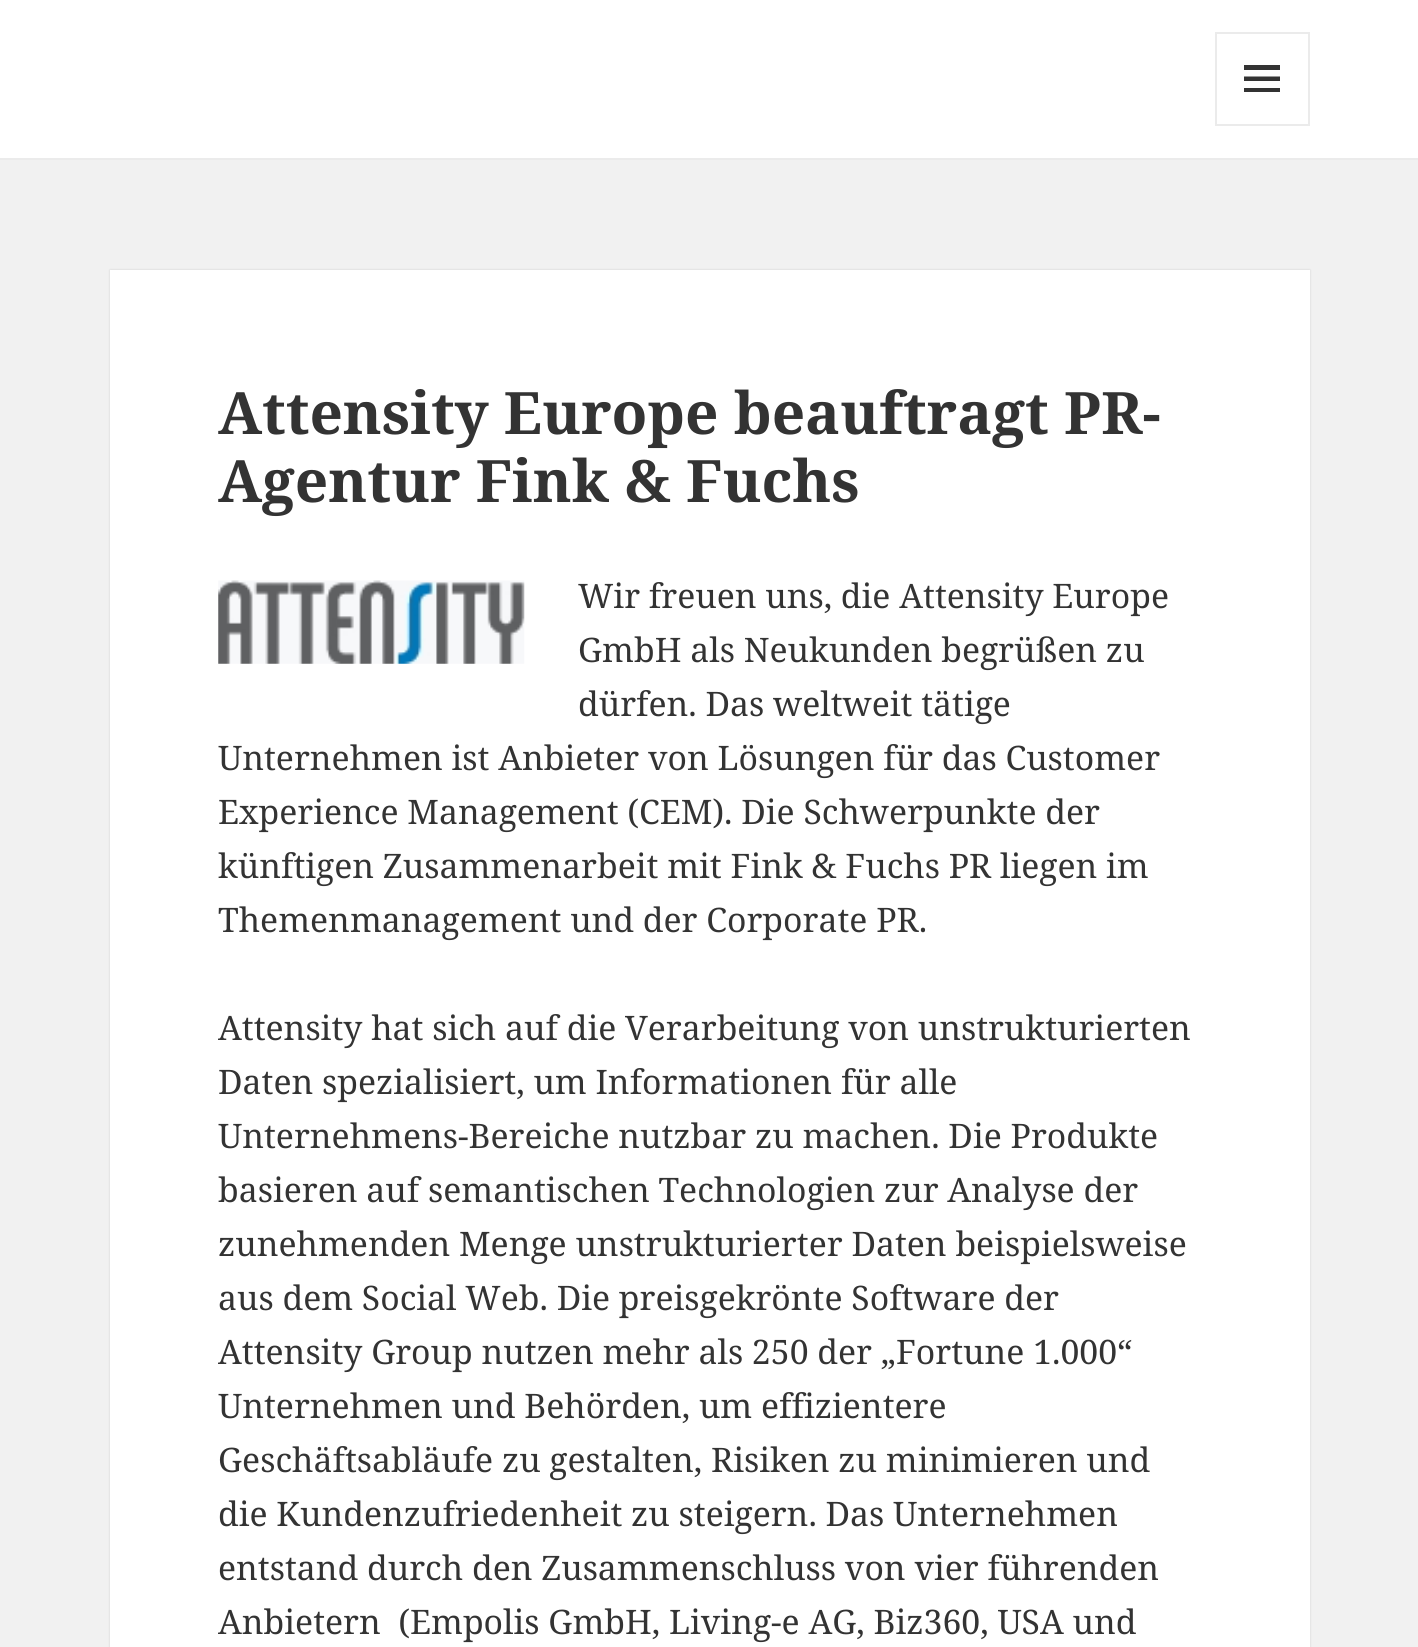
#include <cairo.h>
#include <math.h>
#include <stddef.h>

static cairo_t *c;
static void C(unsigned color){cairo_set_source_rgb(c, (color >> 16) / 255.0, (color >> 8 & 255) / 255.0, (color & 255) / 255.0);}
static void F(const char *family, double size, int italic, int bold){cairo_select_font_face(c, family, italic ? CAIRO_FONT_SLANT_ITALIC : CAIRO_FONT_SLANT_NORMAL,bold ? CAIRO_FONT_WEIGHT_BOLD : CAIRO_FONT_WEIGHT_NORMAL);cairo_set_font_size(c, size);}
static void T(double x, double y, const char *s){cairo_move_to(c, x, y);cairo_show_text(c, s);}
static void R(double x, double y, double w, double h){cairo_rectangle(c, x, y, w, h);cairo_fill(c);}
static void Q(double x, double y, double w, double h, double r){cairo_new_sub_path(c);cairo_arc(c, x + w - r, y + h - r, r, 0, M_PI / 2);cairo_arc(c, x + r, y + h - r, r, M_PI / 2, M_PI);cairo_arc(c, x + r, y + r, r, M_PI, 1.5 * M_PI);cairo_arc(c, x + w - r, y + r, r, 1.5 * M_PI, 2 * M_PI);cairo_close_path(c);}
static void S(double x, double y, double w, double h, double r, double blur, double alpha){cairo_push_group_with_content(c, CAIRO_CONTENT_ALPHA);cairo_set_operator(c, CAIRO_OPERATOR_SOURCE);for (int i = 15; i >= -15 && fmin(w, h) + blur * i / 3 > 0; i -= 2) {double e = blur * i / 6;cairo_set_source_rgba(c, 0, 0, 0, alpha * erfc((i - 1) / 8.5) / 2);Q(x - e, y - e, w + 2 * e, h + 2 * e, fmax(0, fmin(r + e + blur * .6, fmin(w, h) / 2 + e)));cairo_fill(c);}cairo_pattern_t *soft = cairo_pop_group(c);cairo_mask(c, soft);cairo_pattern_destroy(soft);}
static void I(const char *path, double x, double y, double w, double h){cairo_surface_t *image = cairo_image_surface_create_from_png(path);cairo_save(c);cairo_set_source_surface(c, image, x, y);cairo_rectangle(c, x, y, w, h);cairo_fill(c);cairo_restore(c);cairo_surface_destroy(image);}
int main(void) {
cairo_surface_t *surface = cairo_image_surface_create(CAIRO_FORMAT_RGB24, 1418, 1647);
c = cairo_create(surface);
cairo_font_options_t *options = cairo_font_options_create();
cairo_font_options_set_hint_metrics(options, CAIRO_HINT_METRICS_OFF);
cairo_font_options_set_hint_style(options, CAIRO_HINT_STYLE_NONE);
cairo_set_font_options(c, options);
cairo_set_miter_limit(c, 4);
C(0xf1f1f1);
cairo_paint(c);
C(0xffffff);
R(0,0,1418,158);
C(0xebebeb);
R(0,158,1418,2);
cairo_rectangle(c,1216,33,93,92);
cairo_stroke(c);
C(0x333333);
cairo_new_path(c);
cairo_move_to(c,1244,92);
cairo_line_to(c,1244,88);
cairo_line_to(c,1280,88);
cairo_line_to(c,1280,92);
cairo_close_path(c);
cairo_move_to(c,1244,65);
cairo_line_to(c,1280,65);
cairo_line_to(c,1280,70);
cairo_line_to(c,1244,70);
cairo_close_path(c);
cairo_move_to(c,1244,81);
cairo_line_to(c,1244,76.5);
cairo_line_to(c,1280,76.5);
cairo_line_to(c,1280,81);
cairo_close_path(c);
cairo_fill(c);
C(0x000000);
S(110,270,1200,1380,0,1,.15);
C(0xffffff);
R(110,270,1200,1377);
F("Noto Serif",58.5,0,1);
C(0x333333);
T(218,434,"Attensity Europe beauftragt PR-");
T(218,502,"Agentur Fink & Fuchs");
I("1.png",218,580,307,84);
F("Noto Serif",33.75,0,0);
T(578,608,"Wir freuen uns, die Attensity Europe");
T(578,662,"GmbH als Neukunden begrüßen zu");
T(578,716,"dürfen. Das weltweit tätige");
T(218,770,"Unternehmen ist Anbieter von Lösungen für das Customer");
T(218,824,"Experience Management (CEM). Die Schwerpunkte der");
T(218,878,"künftigen Zusammenarbeit mit Fink & Fuchs PR liegen im");
T(218,932,"Themenmanagement und der Corporate PR.");
T(218,1040,"Attensity hat sich auf die Verarbeitung von unstrukturierten");
T(218,1094,"Daten spezialisiert, um Informationen für alle");
T(218,1148,"Unternehmens-Bereiche nutzbar zu machen. Die Produkte");
T(218,1202,"basieren auf semantischen Technologien zur Analyse der");
T(218,1256,"zunehmenden Menge unstrukturierter Daten beispielsweise");
T(218,1310,"aus dem Social Web. Die preisgekrönte Software der");
T(218,1364,"Attensity Group nutzen mehr als 250 der „Fortune 1.000“");
T(218,1418,"Unternehmen und Behörden, um effizientere");
T(218,1472,"Geschäftsabläufe zu gestalten, Risiken zu minimieren und");
T(218,1526,"die Kundenzufriedenheit zu steigern. Das Unternehmen");
T(218,1580,"entstand durch den Zusammenschluss von vier führenden");
T(218,1634,"Anbietern  (Empolis GmbH, Living-e AG, Biz360, USA und");
cairo_surface_write_to_png(surface, "o.png");
cairo_font_options_destroy(options);
cairo_destroy(c);
cairo_surface_destroy(surface);
return 0;
}
